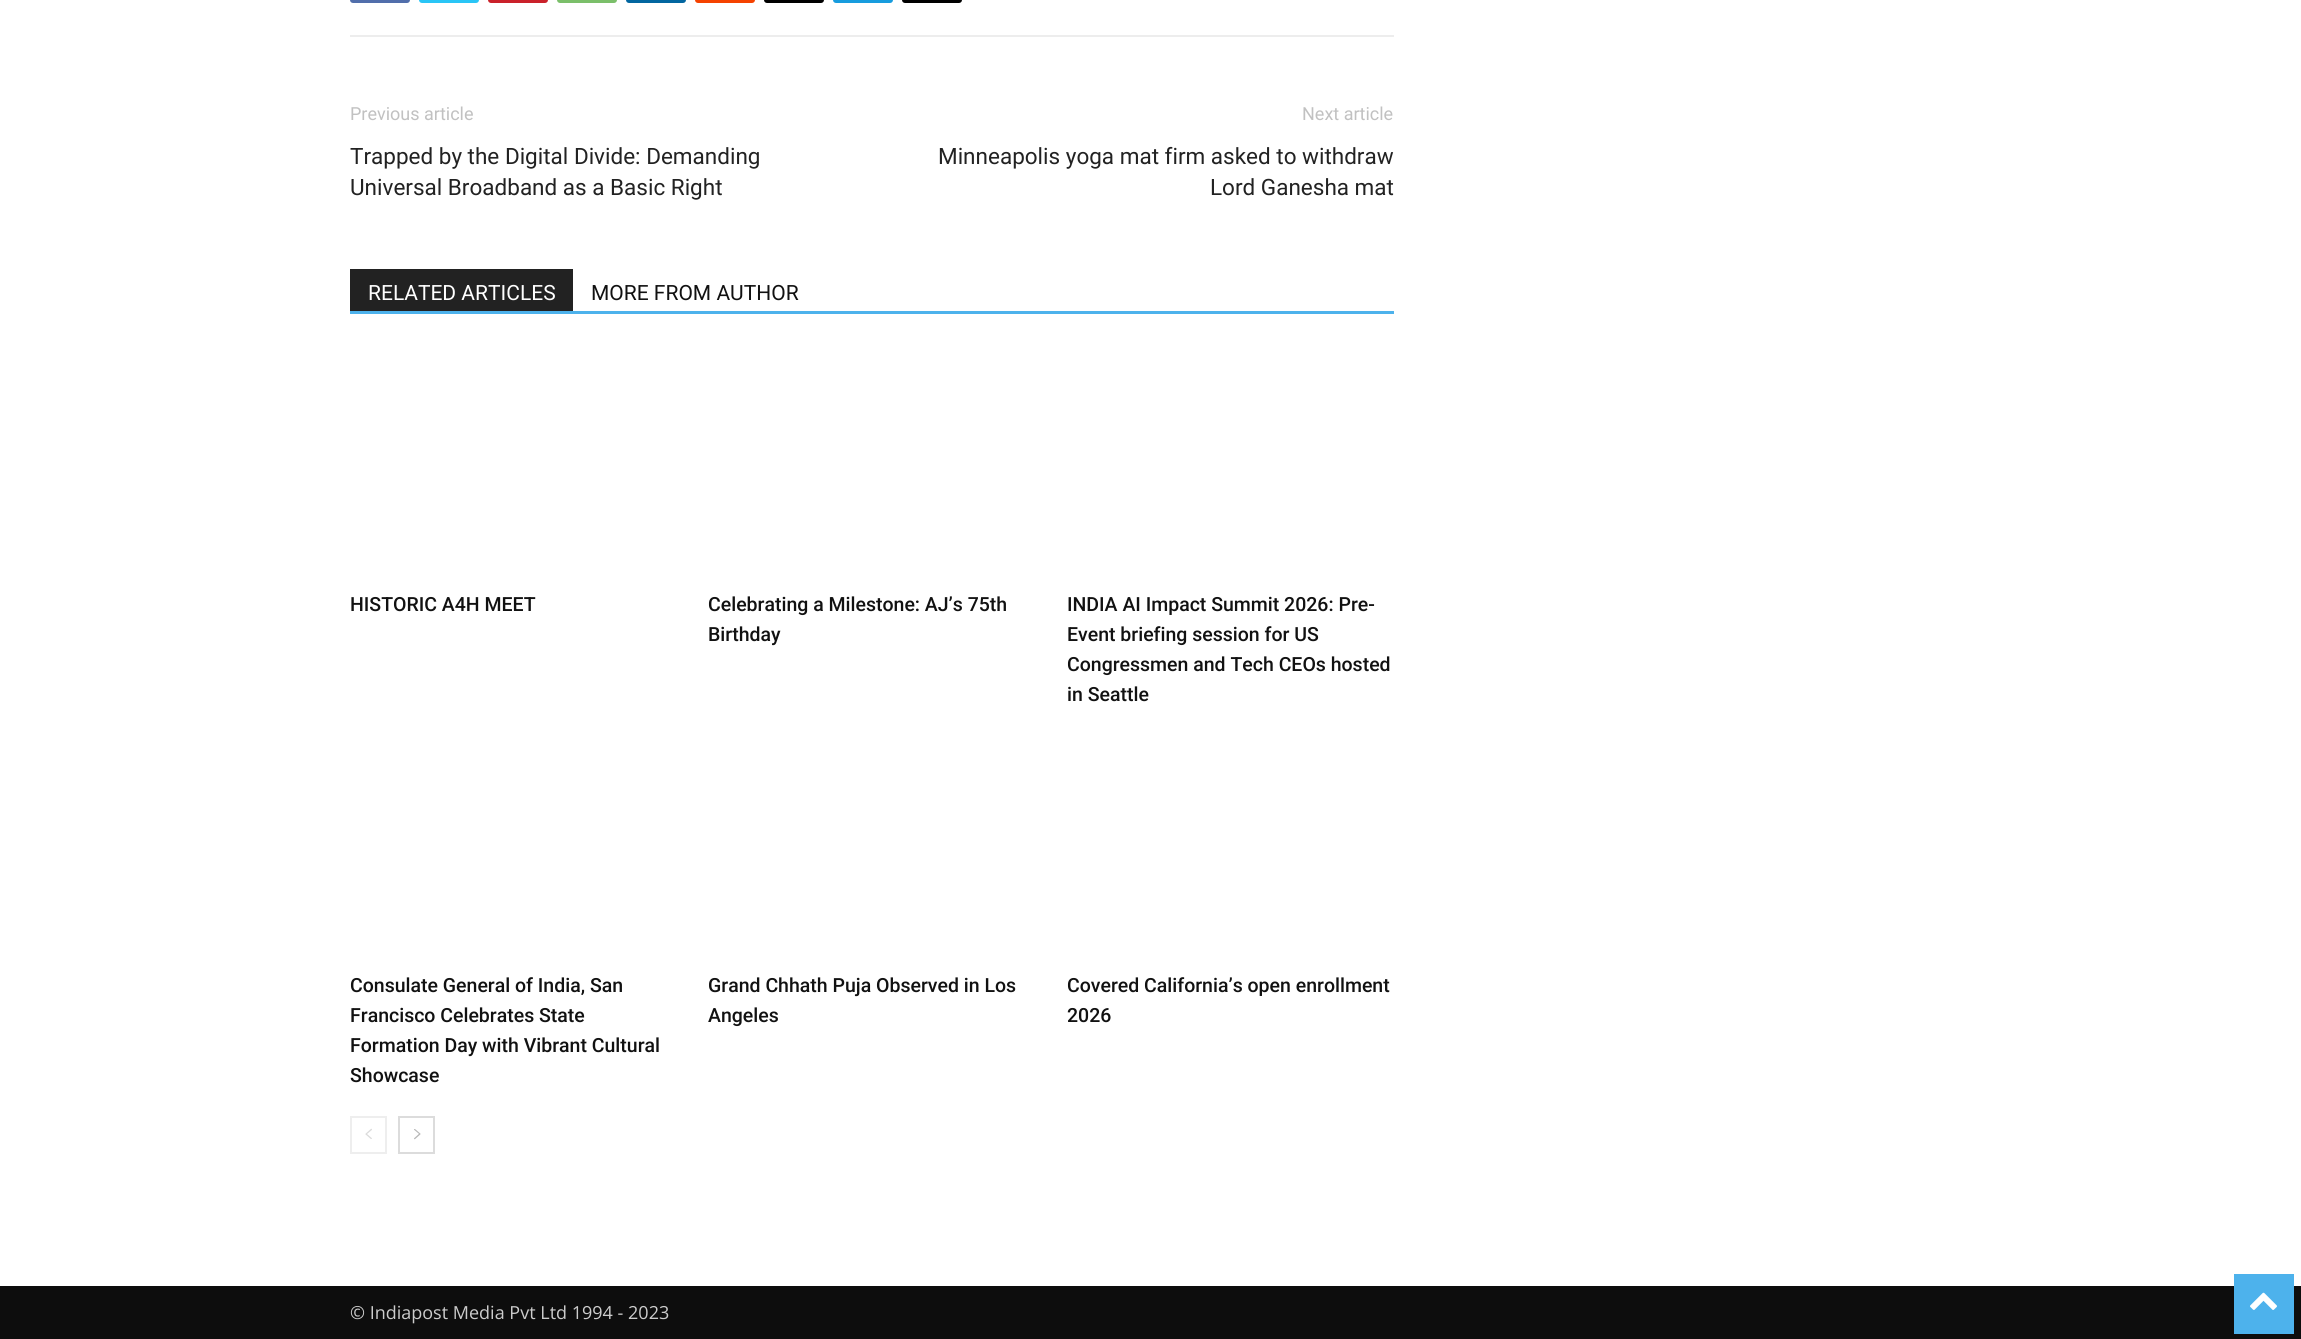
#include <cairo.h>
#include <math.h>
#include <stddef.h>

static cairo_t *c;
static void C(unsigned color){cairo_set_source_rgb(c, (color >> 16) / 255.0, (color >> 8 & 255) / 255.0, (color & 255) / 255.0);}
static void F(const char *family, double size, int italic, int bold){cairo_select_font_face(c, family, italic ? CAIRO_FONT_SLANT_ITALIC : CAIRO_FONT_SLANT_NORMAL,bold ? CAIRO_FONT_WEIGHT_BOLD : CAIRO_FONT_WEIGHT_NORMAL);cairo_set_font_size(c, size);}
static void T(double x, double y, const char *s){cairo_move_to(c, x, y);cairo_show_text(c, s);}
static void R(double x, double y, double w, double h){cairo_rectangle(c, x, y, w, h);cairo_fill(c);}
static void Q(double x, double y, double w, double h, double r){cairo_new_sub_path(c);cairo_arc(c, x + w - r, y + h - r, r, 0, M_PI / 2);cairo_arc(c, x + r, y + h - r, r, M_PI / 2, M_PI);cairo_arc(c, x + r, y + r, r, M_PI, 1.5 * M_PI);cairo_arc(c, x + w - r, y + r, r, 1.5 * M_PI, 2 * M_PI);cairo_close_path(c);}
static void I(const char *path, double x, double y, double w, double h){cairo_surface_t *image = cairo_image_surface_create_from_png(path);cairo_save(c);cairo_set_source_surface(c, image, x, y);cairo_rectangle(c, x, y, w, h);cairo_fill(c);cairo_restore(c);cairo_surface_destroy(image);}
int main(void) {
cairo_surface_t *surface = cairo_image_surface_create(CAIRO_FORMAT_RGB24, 2301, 1339);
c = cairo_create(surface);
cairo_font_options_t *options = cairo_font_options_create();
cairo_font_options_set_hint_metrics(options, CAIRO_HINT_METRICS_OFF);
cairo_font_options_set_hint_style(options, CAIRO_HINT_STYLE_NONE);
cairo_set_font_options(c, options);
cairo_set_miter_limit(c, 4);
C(0xffffff);
cairo_paint(c);
C(0xededed);
R(350,35,1044,2);
C(0x516eab);
Q(350,-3,60,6,3);
cairo_fill(c);
C(0x29c5f6);
Q(419,-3,60,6,3);
cairo_fill(c);
C(0xca212a);
Q(488,-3,60,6,3);
cairo_fill(c);
C(0x7bbf6a);
Q(557,-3,60,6,3);
cairo_fill(c);
C(0x0266a0);
Q(626,-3,60,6,3);
cairo_fill(c);
C(0xf54200);
Q(695,-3,60,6,3);
cairo_fill(c);
C(0x000000);
Q(764,-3,60,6,3);
cairo_fill(c);
C(0x179cde);
Q(833,-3,60,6,3);
cairo_fill(c);
C(0x000000);
Q(902,-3,60,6,3);
cairo_fill(c);
F("Roboto",18,0,0);
C(0xc1c1c1);
T(350,120,"Previous article");
F("Roboto",22.5,0,0);
C(0x222222);
T(350,164,"Trapped by the Digital Divide: Demanding");
T(350,195,"Universal Broadband as a Basic Right");
F("Roboto",18,0,0);
C(0xc1c1c1);
T(1302,120,"Next article");
F("Roboto",22.5,0,0);
C(0x222222);
T(938,164,"Minneapolis yoga mat firm asked to withdraw");
T(1210,195,"Lord Ganesha mat");
C(0x4db2ec);
R(350,311,1044,3);
C(0x222222);
R(350,269,223,42);
F("Roboto",21,0,0);
C(0xffffff);
T(368,300,"RELATED ARTICLES");
C(0x111111);
T(591,300,"MORE FROM AUTHOR");
F("Roboto Medium",19.5,0,0);
T(350,611,"HISTORIC A4H MEET");
T(708,611,"Celebrating a Milestone: AJ’s 75th");
T(708,641,"Birthday");
T(1067,611,"INDIA AI Impact Summit 2026: Pre-");
T(1067,641,"Event briefing session for US");
T(1067,671,"Congressmen and Tech CEOs hosted");
T(1067,701,"in Seattle");
T(350,992,"Consulate General of India, San");
T(350,1022,"Francisco Celebrates State");
T(350,1052,"Formation Day with Vibrant Cultural");
T(350,1082,"Showcase");
T(708,992,"Grand Chhath Puja Observed in Los");
T(708,1022,"Angeles");
T(1067,992,"Covered California’s open enrollment");
T(1067,1022,"2026");
cairo_rectangle(c,351,1117,35,36);
C(0xeeeeee);
cairo_stroke(c);
I("1.png",365,1128,7,11);
cairo_rectangle(c,399,1117,35,36);
C(0xdcdcdc);
cairo_stroke(c);
I("2.png",414,1129,7,11);
C(0x0d0d0d);
R(0,1286,2301,53);
F("Open Sans",18,0,0);
C(0xcccccc);
T(350,1319,"© Indiapost Media Pvt Ltd 1994 - 2023");
C(0x4db2ec);
R(2234,1274,60,60);
I("3.png",2250,1292,27,18);
cairo_surface_write_to_png(surface, "o.png");
cairo_font_options_destroy(options);
cairo_destroy(c);
cairo_surface_destroy(surface);
return 0;
}
